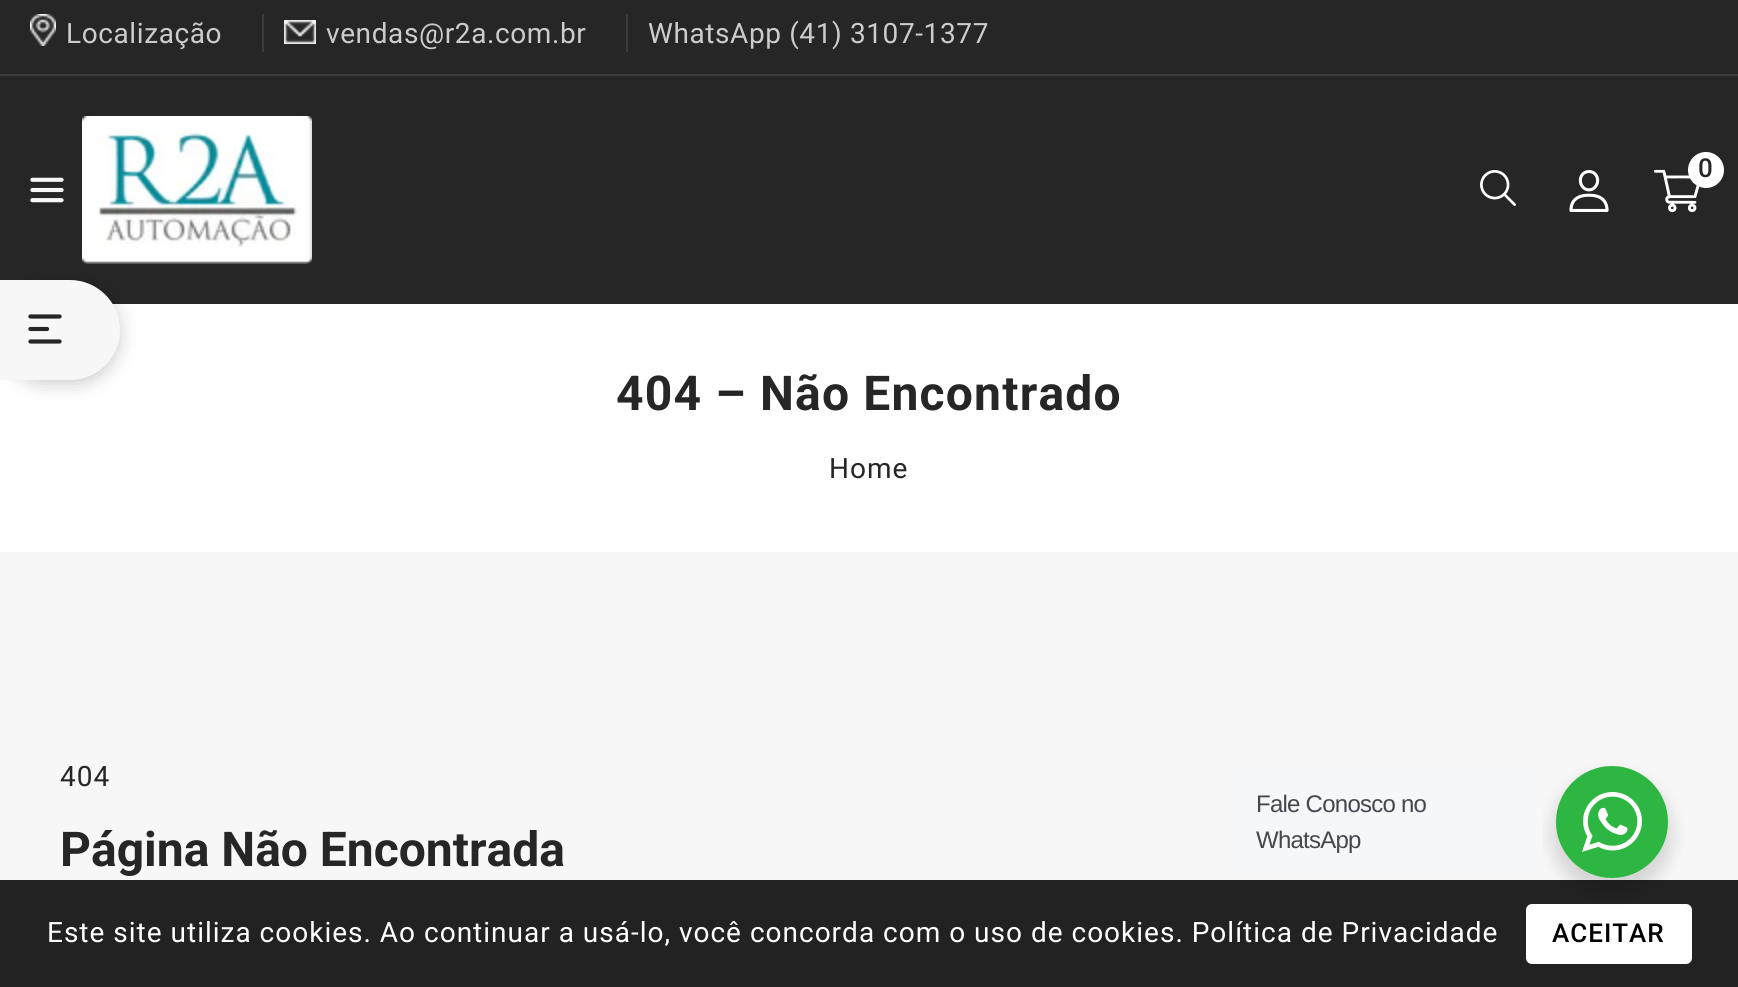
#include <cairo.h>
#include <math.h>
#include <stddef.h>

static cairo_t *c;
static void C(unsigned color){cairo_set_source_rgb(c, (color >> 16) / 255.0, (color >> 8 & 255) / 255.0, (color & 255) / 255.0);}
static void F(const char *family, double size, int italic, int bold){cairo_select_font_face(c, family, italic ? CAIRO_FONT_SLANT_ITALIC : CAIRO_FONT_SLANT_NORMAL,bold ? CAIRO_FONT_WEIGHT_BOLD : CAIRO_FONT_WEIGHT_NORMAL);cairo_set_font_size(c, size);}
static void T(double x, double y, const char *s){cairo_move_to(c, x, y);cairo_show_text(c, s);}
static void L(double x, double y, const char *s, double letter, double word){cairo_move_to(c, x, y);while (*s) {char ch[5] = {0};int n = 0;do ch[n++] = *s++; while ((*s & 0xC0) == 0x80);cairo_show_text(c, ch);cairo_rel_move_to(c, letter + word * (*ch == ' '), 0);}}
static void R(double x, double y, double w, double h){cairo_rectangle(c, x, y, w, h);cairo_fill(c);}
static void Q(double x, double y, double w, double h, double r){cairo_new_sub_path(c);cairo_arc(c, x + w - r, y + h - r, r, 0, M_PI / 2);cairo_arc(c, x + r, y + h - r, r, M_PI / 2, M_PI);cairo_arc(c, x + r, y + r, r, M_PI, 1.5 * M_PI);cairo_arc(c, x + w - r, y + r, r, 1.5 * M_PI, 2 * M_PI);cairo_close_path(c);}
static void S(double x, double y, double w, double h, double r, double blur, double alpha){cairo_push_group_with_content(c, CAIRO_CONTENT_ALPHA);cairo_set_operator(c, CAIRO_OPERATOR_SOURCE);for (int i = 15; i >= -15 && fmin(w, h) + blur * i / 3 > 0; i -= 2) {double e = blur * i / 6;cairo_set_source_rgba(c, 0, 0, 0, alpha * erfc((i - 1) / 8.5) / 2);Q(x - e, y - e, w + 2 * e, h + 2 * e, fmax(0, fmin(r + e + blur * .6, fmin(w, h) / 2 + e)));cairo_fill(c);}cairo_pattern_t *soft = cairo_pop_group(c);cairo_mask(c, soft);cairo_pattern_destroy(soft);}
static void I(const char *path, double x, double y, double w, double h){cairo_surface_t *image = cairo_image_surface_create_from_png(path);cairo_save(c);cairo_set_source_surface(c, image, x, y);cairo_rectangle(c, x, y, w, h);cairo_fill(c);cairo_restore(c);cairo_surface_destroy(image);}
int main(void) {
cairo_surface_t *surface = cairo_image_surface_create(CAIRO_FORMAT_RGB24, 1738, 987);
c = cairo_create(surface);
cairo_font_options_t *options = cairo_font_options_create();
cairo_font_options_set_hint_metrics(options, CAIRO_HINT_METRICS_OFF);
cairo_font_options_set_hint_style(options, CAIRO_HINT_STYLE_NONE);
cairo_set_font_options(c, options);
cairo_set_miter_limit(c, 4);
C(0xf7f7f7);
cairo_paint(c);
C(0x262626);
R(0,0,1738,74);
C(0x3c3c3c);
R(0,74,1738,2);
I("1.png",30,14,26,32);
F("Roboto",28,0,0);
C(0xcccccc);
L(66,43,"Localização",.6,0);
C(0x3c3c3c);
R(262,14,2,38);
I("2.png",284,20,32,24);
C(0xcccccc);
L(326,43,"vendas@r2a.com.br",.6,0);
C(0x3c3c3c);
R(626,14,2,38);
C(0xcccccc);
L(648,43,"WhatsApp (41) 3107-1377",.6,0);
C(0x262626);
R(0,76,1738,228);
I("3.png",82,116,230,148);
I("4.png",1654,169,46,44);
C(0xffffff);
cairo_arc(c,1706,170,18,0,2 * M_PI);
cairo_fill(c);
F("Roboto Medium",26,0,0);
C(0x262626);
L(1698,177,"0",1,0);
I("5.png",1480,170,36,36);
I("6.png",1569,170,40,42);
I("7.png",30,177,34,26);
C(0xffffff);
R(0,304,1738,248);
C(0x000000);
S(0,284,120,100,50,9,.2);
C(0xf7f7f7);
cairo_new_path(c);
cairo_move_to(c,0,280);
cairo_line_to(c,70,280);
cairo_curve_to(c,97.5,280,120,302.5,120,330);
cairo_curve_to(c,120,357.5,97.5,380,70,380);
cairo_line_to(c,0,380);
cairo_close_path(c);
cairo_fill(c);
I("8.png",28,314,34,30);
F("Roboto",48,0,1);
C(0x262626);
L(616,410,"404 – Não Encontrado",1.2,0);
F("Roboto",28,0,0);
L(829,478,"Home",1,0);
L(60,786,"404",1,0);
F("Roboto",48,0,1);
T(60,866,"Página Não Encontrada");
C(0x222222);
R(0,880,1738,107);
C(0xffffff);
Q(1526,904,166,60,6);
cairo_fill(c);
C(0x000000);
S(1552,774,120,120,60,8,.14);
C(0xf5f7f9);
Q(1232,770,310,104,8);
cairo_fill(c);
F("Liberation Sans",24,0,0);
C(0x43474e);
L(1256,812,"Fale Conosco no",-.75,0);
L(1256,848,"WhatsApp",-.75,0);
C(0x2db742);
cairo_new_path(c);
cairo_arc(c,1612,822,56,0,2 * M_PI);
cairo_fill(c);
I("9.png",1582,792,60,60);
F("Roboto",28,0,0);
C(0xffffff);
L(47,942,"Este site utiliza cookies. Ao continuar a usá-lo, você concorda com o uso de cookies. Política de Privacidade",1,0);
F("Roboto Medium",26,0,0);
C(0x000000);
L(1552,942,"ACEITAR",1,0);
cairo_surface_write_to_png(surface, "o.png");
cairo_font_options_destroy(options);
cairo_destroy(c);
cairo_surface_destroy(surface);
return 0;
}
